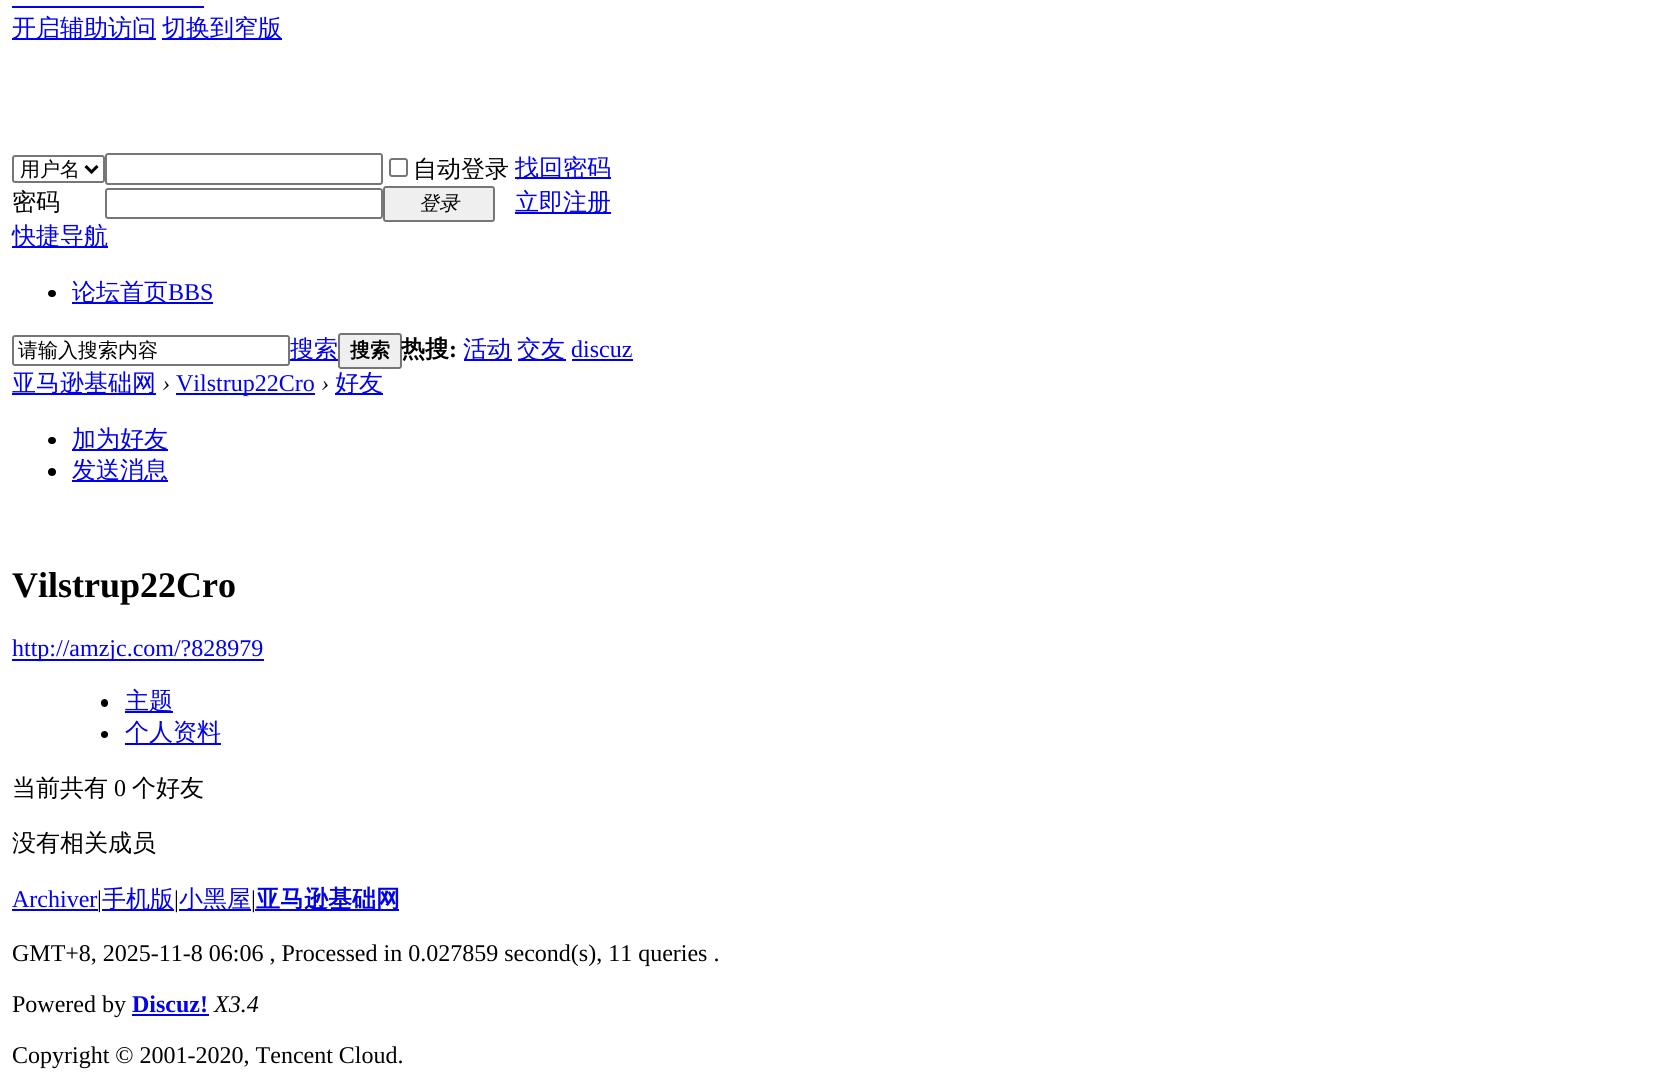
#include <cairo.h>
#include <math.h>
#include <stddef.h>

static cairo_t *c;
static void C(unsigned color){cairo_set_source_rgb(c, (color >> 16) / 255.0, (color >> 8 & 255) / 255.0, (color & 255) / 255.0);}
static void F(const char *family, double size, int italic, int bold){cairo_select_font_face(c, family, italic ? CAIRO_FONT_SLANT_ITALIC : CAIRO_FONT_SLANT_NORMAL,bold ? CAIRO_FONT_WEIGHT_BOLD : CAIRO_FONT_WEIGHT_NORMAL);cairo_set_font_size(c, size);}
static void T(double x, double y, const char *s){cairo_move_to(c, x, y);cairo_show_text(c, s);}
static void R(double x, double y, double w, double h){cairo_rectangle(c, x, y, w, h);cairo_fill(c);}
static void Q(double x, double y, double w, double h, double r){cairo_new_sub_path(c);cairo_arc(c, x + w - r, y + h - r, r, 0, M_PI / 2);cairo_arc(c, x + r, y + h - r, r, M_PI / 2, M_PI);cairo_arc(c, x + r, y + r, r, M_PI, 1.5 * M_PI);cairo_arc(c, x + w - r, y + r, r, 1.5 * M_PI, 2 * M_PI);cairo_close_path(c);}
int main(void) {
cairo_surface_t *surface = cairo_image_surface_create(CAIRO_FORMAT_RGB24, 1656, 1078);
c = cairo_create(surface);
cairo_font_options_t *options = cairo_font_options_create();
cairo_font_options_set_hint_metrics(options, CAIRO_HINT_METRICS_OFF);
cairo_font_options_set_hint_style(options, CAIRO_HINT_STYLE_NONE);
cairo_set_font_options(c, options);
cairo_set_miter_limit(c, 4);
C(0xffffff);
cairo_paint(c);
C(0x0000ee);
R(12,6,192,2);
R(12,38,144,2);
F("WenQuanYi Zen Hei Medium",24,0,0);
T(12,36,"开启辅助访问");
R(162,38,120,2);
T(162,36,"切换到窄版");
Q(13,156,91,26,2);
C(0x767676);
cairo_stroke(c);
cairo_new_path(c);
cairo_move_to(c,85.5,166);
cairo_line_to(c,91.5,172);
cairo_line_to(c,97.5,166);
C(0x000000);
cairo_set_line_width(c,3);
cairo_stroke(c);
F("WenQuanYi Zen Hei Medium",20,0,0);
T(20,176,"用户名");
Q(106,154,276,30,2);
C(0x767676);
cairo_set_line_width(c,2);
cairo_stroke(c);
Q(390,159,17,17,2);
cairo_stroke(c);
F("WenQuanYi Zen Hei Medium",24,0,0);
C(0x000000);
T(413,177,"自动登录");
C(0x0000ee);
R(515,177,96,2);
T(515,176,"找回密码");
C(0x000000);
T(12,210,"密码");
Q(106,189,276,29,2);
C(0x767676);
cairo_stroke(c);
C(0xefefef);
Q(384,187,110,34,2);
cairo_fill_preserve(c);
C(0x767676);
cairo_stroke(c);
F("WenQuanYi Zen Hei Medium",20,1,0);
C(0x000000);
T(419,210,"登录");
C(0x0000ee);
R(515,212,96,2);
F("WenQuanYi Zen Hei Medium",24,0,0);
T(515,210,"立即注册");
R(12,246,96,2);
T(12,244,"快捷导航");
C(0x000000);
Q(48,290,8,7,3.5);
cairo_fill(c);
C(0x0000ee);
R(72,302,141,2);
T(72,300,"论坛首页");
F("Liberation Serif",24,0,0);
T(168,300,"BBS");
Q(13,336,276,29,2);
C(0x767676);
cairo_stroke(c);
F("WenQuanYi Zen Hei Medium",20,0,0);
C(0x000000);
T(18,357,"请输入搜索内容");
C(0x0000ee);
R(290,359,48,2);
F("WenQuanYi Zen Hei Medium",24,0,0);
T(290,357,"搜索");
C(0xefefef);
Q(339,334,62,34,2);
cairo_fill_preserve(c);
C(0x767676);
cairo_stroke(c);
F("WenQuanYi Zen Hei",20,0,1);
C(0x000000);
T(350,357,"搜索");
F("WenQuanYi Zen Hei",24,0,1);
T(401,357,"热搜");
F("Liberation Serif",24,0,1);
T(449,357,":");
C(0x0000ee);
R(464,359,48,2);
F("WenQuanYi Zen Hei Medium",24,0,0);
T(463,357,"活动");
R(518,359,48,2);
T(517,357,"交友");
F("Liberation Serif",24,0,0);
T(571,357,"discuz");
R(572,359,61,2);
R(12,393,144,2);
F("WenQuanYi Zen Hei Medium",24,0,0);
T(12,391,"亚马逊基础网");
F("Liberation Serif",24,1,0);
C(0x000000);
T(162,391,"›");
C(0x0000ee);
R(176,393,139,2);
F("Liberation Serif",24,0,0);
T(176,391,"Vilstrup22Cro");
F("Liberation Serif",24,1,0);
C(0x000000);
T(321,391,"›");
C(0x0000ee);
R(335,393,48,2);
F("WenQuanYi Zen Hei Medium",24,0,0);
T(335,391,"好友");
C(0x000000);
Q(48,437,8,7,3.5);
cairo_fill(c);
C(0x0000ee);
R(72,449,96,2);
T(72,447,"加为好友");
C(0x000000);
cairo_new_path(c);
cairo_arc(c,52,472,4,0,2 * M_PI);
cairo_fill(c);
C(0x0000ee);
R(72,480,96,2);
T(72,478,"发送消息");
F("Liberation Serif",36,0,1);
C(0x000000);
T(12,597,"Vilstrup22Cro");
C(0x0000ee);
R(12,659,252,2);
F("Liberation Serif",24,0,0);
T(12,656,"http://amzjc.com/?828979");
C(0x000000);
Q(101,699,7,8,3.5);
cairo_fill(c);
C(0x0000ee);
R(125,711,48,2);
F("WenQuanYi Zen Hei Medium",24,0,0);
T(125,709,"主题");
C(0x000000);
cairo_new_path(c);
cairo_arc(c,104.5,734.5,3.5,0,2 * M_PI);
cairo_fill(c);
C(0x0000ee);
R(125,743,96,2);
T(125,740,"个人资料");
C(0x000000);
T(12,796,"当前共有");
F("Liberation Serif",24,0,0);
T(114,796,"0");
F("WenQuanYi Zen Hei Medium",24,0,0);
T(132,796,"个好友");
T(12,851,"没有相关成员");
F("Liberation Serif",24,0,0);
C(0x0000ee);
T(12,907,"Archiver");
R(12,909,86,2);
C(0x000000);
T(97,907,"|");
C(0x0000ee);
R(102,909,72,2);
F("WenQuanYi Zen Hei Medium",24,0,0);
T(102,907,"手机版");
F("Liberation Serif",24,0,0);
C(0x000000);
T(174,907,"|");
C(0x0000ee);
R(179,909,72,2);
F("WenQuanYi Zen Hei Medium",24,0,0);
T(179,907,"小黑屋");
F("Liberation Serif",24,0,0);
C(0x000000);
T(251,907,"|");
C(0x0000ee);
R(255,909,144,2);
F("WenQuanYi Zen Hei",24,0,1);
T(256,907,"亚马逊基础网");
F("Liberation Serif",24,0,0);
C(0x000000);
T(12,961,"GMT+8, 2025-11-8 06:06 , Processed in 0.027859 second(s), 11 queries .");
T(12,1012,"Powered by");
F("Liberation Serif",24,0,1);
C(0x0000ee);
T(132,1012,"Discuz!");
R(132,1014,77,2);
F("Liberation Serif",24,1,0);
C(0x000000);
T(214,1012,"X3.4");
F("Liberation Serif",24,0,0);
T(12,1063,"Copyright © 2001-2020, Tencent Cloud.");
cairo_surface_write_to_png(surface, "o.png");
cairo_font_options_destroy(options);
cairo_destroy(c);
cairo_surface_destroy(surface);
return 0;
}
